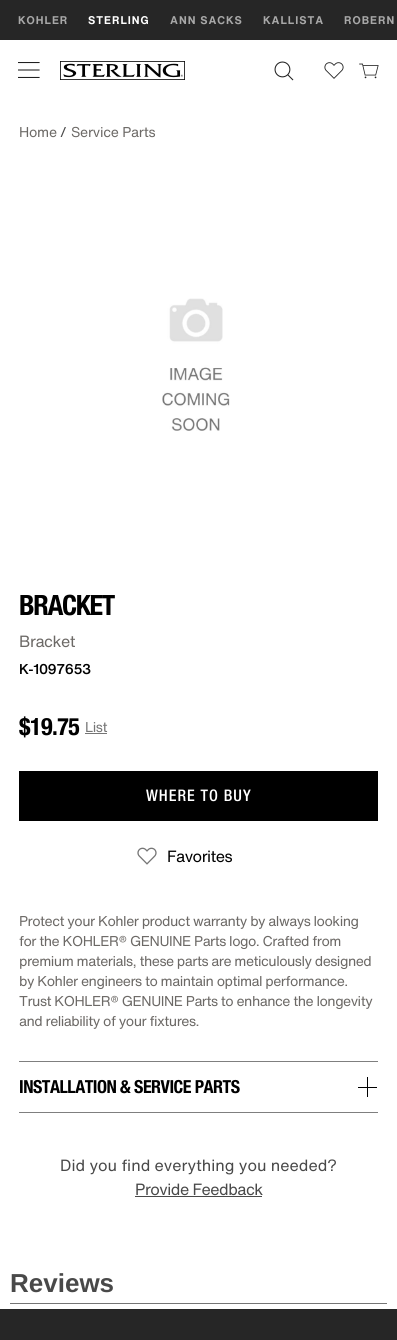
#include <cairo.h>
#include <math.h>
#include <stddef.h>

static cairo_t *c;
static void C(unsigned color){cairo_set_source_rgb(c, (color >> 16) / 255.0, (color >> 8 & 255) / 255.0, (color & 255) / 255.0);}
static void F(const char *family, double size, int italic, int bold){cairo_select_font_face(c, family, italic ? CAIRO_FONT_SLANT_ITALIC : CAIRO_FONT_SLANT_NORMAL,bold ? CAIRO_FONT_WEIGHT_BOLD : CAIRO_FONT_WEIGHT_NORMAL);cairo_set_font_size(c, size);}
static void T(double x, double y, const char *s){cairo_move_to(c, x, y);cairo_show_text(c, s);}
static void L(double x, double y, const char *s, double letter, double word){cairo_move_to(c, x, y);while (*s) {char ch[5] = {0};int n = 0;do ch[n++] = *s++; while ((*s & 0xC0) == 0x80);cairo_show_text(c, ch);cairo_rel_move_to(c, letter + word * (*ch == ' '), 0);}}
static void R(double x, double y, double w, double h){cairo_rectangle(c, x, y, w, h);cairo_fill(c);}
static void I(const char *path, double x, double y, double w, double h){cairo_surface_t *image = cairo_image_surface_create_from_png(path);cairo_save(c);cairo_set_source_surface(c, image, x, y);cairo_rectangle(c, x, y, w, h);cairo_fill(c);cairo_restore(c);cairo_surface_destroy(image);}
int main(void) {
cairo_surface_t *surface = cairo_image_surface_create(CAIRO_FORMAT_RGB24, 397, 1340);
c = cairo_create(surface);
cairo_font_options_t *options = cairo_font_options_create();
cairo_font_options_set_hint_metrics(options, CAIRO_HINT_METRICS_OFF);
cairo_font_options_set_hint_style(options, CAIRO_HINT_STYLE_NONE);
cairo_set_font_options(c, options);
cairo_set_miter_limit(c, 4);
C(0xffffff);
cairo_paint(c);
C(0x262626);
R(0,0,397,40);
F("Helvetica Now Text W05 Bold",11,0,1);
C(0xa8a8a8);
L(18,24,"KOHLER",1,0);
C(0xffffff);
L(88,24,"STERLING",1,0);
C(0xa8a8a8);
L(170,24,"ANN SACKS",1,0);
L(263,24,"KALLISTA",1,0);
L(344,24,"ROBERN",1,0);
I("1.png",18,62,22,16);
I("2.png",60,61,125,19);
I("3.png",274,61,20,20);
I("4.png",324,62,20,17);
I("5.png",359,63,20,16);
F("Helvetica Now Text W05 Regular",14,0,0);
C(0x6c6966);
L(19,137,"Home",-.25,0);
C(0x494949);
T(60,137,"/");
C(0x6c6966);
L(71,137,"Service Parts",-.25,0);
I("6.png",162,298,68,133);
F("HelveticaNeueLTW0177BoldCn",28,0,1);
C(0x000000);
L(19,615,"BRACKET",-1.25,0);
F("Helvetica Now Text W05 Regular",16,0,0);
C(0x6c6966);
L(19,647,"Bracket",-.5,0);
F("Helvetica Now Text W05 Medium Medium",14,0,0);
C(0x000000);
L(19,674,"K-1097653",-.5,0);
F("HelveticaNeueLTW0177BoldCn",24,0,1);
L(19,735,"$19.75",-.5,0);
F("Helvetica Now Text W05 Regular",14,0,0);
C(0x757575);
L(85,732,"List",-.5,0);
R(85,733,22,1);
C(0x000000);
R(19,771,359,50);
F("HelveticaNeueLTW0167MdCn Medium",16,0,0);
C(0xffffff);
L(146,801,"WHERE TO BUY",1,0);
I("7.png",137,847,20,18);
F("Helvetica Now Text W05 Regular",16,0,0);
C(0x000000);
L(167,862,"Favorites",-.5,0);
F("Helvetica Now Text W05 Regular",14,0,0);
C(0x6c6966);
L(19,926,"Protect your Kohler product warranty by always looking",-.5,0);
L(19,946,"for the KOHLER® GENUINE Parts logo. Crafted from",-.5,0);
L(19,966,"premium materials, these parts are meticulously designed",-.5,0);
L(19,986,"by Kohler engineers to maintain optimal performance.",-.5,0);
L(19,1006,"Trust KOHLER® GENUINE Parts to enhance the longevity",-.5,0);
L(19,1026,"and reliability of your fixtures.",-.5,0);
C(0x7f7f7f);
R(19,1061,359,1);
R(19,1112,359,1);
F("HelveticaNeueLTW0177BoldCn",18,0,1);
C(0x000000);
L(19,1093,"INSTALLATION & SERVICE PARTS",-.5,0);
R(358,1087,19,1);
R(367,1077,1,20);
F("Helvetica Now Text W05 Regular",16,0,0);
C(0x494949);
T(60,1171,"Did you find everything you needed?");
L(135,1195,"Provide Feedback",-.5,0);
R(135,1196,127,1);
F("Liberation Sans",26,0,1);
T(10,1292,"Reviews");
C(0x757575);
R(10,1303,377,1);
C(0x262626);
R(0,1309,397,31);
cairo_surface_write_to_png(surface, "o.png");
cairo_font_options_destroy(options);
cairo_destroy(c);
cairo_surface_destroy(surface);
return 0;
}
